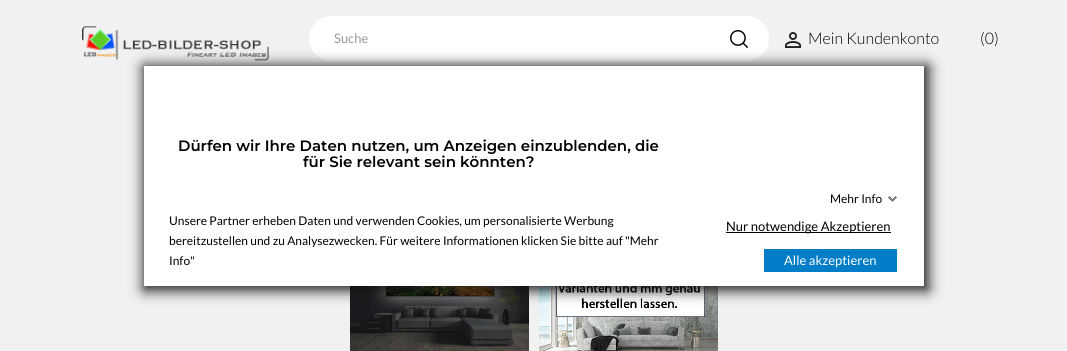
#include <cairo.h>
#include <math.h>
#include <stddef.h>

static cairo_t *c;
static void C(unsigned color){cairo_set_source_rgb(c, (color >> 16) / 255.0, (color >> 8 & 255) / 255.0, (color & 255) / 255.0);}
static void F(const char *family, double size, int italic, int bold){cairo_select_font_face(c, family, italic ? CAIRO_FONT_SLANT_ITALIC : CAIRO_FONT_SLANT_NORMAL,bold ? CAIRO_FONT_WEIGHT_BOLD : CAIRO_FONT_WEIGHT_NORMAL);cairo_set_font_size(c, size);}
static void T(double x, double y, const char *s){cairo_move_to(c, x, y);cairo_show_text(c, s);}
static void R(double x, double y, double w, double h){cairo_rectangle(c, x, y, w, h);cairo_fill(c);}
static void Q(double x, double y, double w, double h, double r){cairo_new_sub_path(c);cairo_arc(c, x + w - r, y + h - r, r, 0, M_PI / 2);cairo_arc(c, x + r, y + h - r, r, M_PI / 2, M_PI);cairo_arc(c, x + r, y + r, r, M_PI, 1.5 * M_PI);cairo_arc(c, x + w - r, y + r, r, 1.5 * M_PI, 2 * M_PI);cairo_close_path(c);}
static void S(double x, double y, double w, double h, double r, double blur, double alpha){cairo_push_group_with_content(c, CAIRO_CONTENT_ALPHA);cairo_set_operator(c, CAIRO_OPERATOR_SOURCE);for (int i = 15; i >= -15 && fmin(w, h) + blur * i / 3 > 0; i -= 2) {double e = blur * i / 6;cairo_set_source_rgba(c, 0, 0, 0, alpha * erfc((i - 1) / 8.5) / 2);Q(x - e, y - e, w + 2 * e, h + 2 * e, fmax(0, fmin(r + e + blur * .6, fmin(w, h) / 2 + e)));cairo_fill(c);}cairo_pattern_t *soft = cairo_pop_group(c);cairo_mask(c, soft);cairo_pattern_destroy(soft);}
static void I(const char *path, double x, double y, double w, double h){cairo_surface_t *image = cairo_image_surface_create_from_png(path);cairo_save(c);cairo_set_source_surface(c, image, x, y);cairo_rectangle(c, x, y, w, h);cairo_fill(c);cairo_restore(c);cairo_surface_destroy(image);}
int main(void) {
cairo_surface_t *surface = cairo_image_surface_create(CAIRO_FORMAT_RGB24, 1067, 351);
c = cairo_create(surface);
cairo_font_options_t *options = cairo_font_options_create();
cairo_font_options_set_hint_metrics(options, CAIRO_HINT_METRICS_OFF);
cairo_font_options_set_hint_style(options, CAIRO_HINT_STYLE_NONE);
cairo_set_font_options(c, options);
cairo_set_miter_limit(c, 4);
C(0xf1f1f1);
cairo_paint(c);
I("1.png",82,26,191,35);
C(0xffffff);
Q(309,16,460,45,22.5);
cairo_fill(c);
F("Lato",13,0,0);
C(0x999999);
T(334,43,"Suche");
I("2.png",730,30,18,18);
I("3.png",785,32,16,16);
F("Lato Light",16,0,0);
C(0x000000);
T(808,44,"Mein Kundenkonto");
T(980,44,"(0)");
I("4.png",350,286,179,65);
I("5.png",539,286,179,65);
C(0x121212);
S(144,66,784,224,0,7,1);
C(0xffffff);
R(144,66,780,220);
F("Montserrat SemiBold",15,0,0);
C(0x000000);
T(178,151,"Dürfen wir Ihre Daten nutzen, um Anzeigen einzublenden, die");
T(303,167,"für Sie relevant sein könnten?");
F("Lato",12,0,0);
T(169,225,"Unsere Partner erheben Daten und verwenden Cookies, um personalisierte Werbung");
T(169,245,"bereitzustellen und zu Analysezwecken. Für weitere Informationen klicken Sie bitte auf \"Mehr");
T(169,265,"Info\"");
T(830,203,"Mehr Info");
I("6.png",888,196,9,6);
R(726,232,165,1);
F("Lato",13,0,0);
T(726,231,"Nur notwendige Akzeptieren");
C(0x007dc6);
R(764,249,133,23);
C(0xffffff);
T(784,265,"Alle akzeptieren");
cairo_surface_write_to_png(surface, "o.png");
cairo_font_options_destroy(options);
cairo_destroy(c);
cairo_surface_destroy(surface);
return 0;
}
